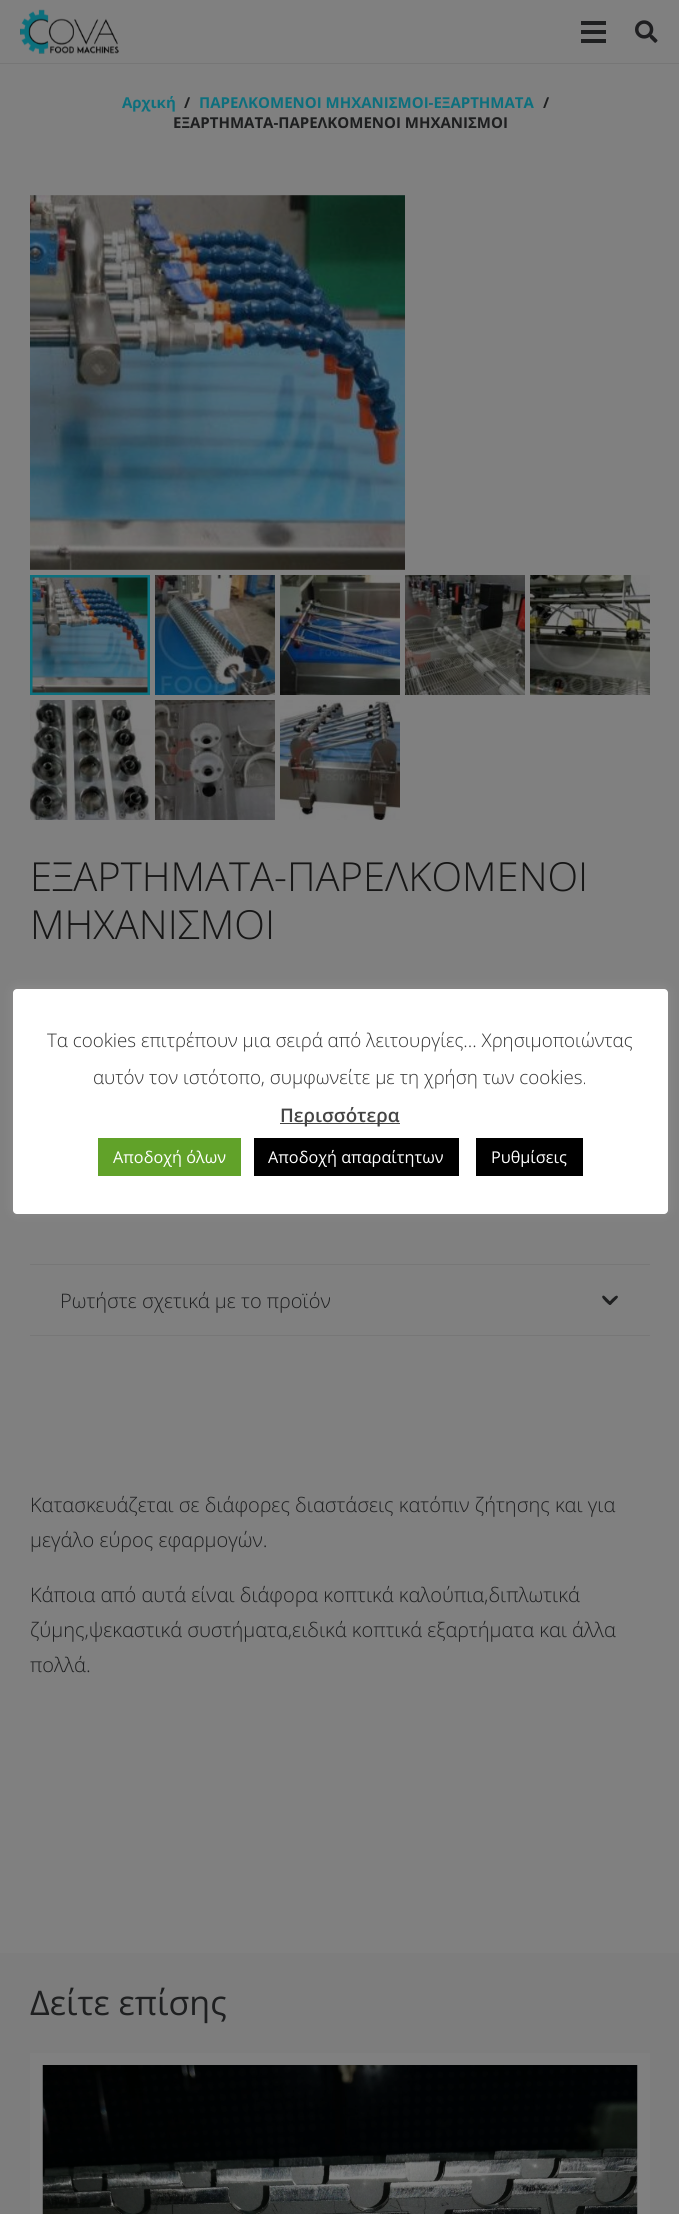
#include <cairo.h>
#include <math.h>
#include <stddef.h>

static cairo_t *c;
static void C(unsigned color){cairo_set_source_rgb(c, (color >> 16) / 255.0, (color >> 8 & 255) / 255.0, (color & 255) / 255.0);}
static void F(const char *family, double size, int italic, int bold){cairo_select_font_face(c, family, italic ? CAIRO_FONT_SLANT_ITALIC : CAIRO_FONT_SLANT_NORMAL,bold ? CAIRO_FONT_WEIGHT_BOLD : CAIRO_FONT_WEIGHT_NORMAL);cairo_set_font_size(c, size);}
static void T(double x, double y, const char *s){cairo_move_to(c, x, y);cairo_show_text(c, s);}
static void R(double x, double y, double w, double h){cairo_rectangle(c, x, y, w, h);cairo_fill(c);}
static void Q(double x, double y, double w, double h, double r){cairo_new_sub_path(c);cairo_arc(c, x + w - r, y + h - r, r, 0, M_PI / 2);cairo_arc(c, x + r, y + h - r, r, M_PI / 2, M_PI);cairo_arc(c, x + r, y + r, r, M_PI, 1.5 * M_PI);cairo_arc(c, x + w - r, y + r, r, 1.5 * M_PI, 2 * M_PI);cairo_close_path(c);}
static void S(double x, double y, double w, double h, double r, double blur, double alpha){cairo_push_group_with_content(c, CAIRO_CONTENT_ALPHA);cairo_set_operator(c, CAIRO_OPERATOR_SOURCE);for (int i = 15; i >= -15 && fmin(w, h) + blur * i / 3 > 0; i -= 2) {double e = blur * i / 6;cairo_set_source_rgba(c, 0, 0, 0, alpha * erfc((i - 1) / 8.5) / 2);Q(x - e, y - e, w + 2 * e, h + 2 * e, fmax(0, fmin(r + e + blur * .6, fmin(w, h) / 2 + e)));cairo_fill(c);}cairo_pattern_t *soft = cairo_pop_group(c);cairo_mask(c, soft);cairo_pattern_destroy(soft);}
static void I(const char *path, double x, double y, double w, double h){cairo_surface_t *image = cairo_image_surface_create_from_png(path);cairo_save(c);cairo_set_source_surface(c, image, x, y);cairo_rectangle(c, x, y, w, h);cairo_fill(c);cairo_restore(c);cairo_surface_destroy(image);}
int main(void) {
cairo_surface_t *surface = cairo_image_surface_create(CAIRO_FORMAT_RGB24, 679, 2214);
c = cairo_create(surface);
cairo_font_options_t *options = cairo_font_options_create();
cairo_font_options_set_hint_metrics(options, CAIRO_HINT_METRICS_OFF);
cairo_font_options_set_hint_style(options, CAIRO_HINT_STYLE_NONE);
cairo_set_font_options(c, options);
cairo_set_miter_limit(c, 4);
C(0x808080);
cairo_paint(c);
C(0x767676);
R(0,63,679,1);
I("1.png",20,9,99,45);
C(0x1e1f20);
R(581,30,25,4);
R(581,21,25,4);
R(581,39,25,4);
I("2.png",635,20,23,23);
F("Open Sans",15,0,1);
C(0x0d6f7d);
T(122,108,"Αρχική");
C(0x1e1f20);
T(184,108,"/");
C(0x0d6f7d);
T(199,108,"ΠΑΡΕΛΚΟΜΕΝΟΙ ΜΗΧΑΝΙΣΜΟΙ-ΕΞΑΡΤΗΜΑΤΑ");
C(0x1e1f20);
T(543,108,"/");
T(173,128,"ΕΞΑΡΤΗΜΑΤΑ-ΠΑΡΕΛΚΟΜΕΝΟΙ ΜΗΧΑΝΙΣΜΟΙ");
I("3.png",30,195,375,375);
cairo_rectangle(c,31.5,576.5,117,117);
C(0x0d6f7d);
cairo_set_line_width(c,3);
cairo_stroke(c);
I("4.png",32,577,116,116);
I("5.png",155,575,120,120);
I("6.png",280,575,120,120);
I("7.png",405,575,120,120);
I("8.png",530,575,120,120);
I("9.png",30,700,120,120);
I("10.png",155,700,120,120);
I("11.png",280,700,120,120);
F("Open Sans Light",40,0,0);
C(0x161616);
T(30,891,"ΕΞΑΡΤΗΜΑΤΑ-ΠΑΡΕΛΚΟΜΕΝΟΙ");
T(30,939,"ΜΗΧΑΝΙΣΜΟΙ");
C(0x777777);
R(30,1264,620,1);
R(30,1335,620,1);
F("Open Sans Light",20,0,0);
C(0x1e1f20);
T(60,1308,"Ρωτήστε σχετικά με το προϊόν");
cairo_new_path(c);
cairo_move_to(c,602.5,1296);
cairo_curve_to(c,603.5,1295,604.5,1296,605.5,1297);
cairo_line_to(c,610,1301.5);
cairo_curve_to(c,611,1302.5,612,1303.5,611,1304.5);
cairo_curve_to(c,609,1306,606.5,1302,605.5,1301.5);
cairo_curve_to(c,605,1300.5,601,1297.5,602.5,1296);
cairo_close_path(c);
cairo_fill(c);
cairo_new_path(c);
cairo_move_to(c,617.5,1296);
cairo_curve_to(c,618.5,1297,617.5,1298,616.5,1299);
cairo_line_to(c,612,1303.5);
cairo_curve_to(c,611,1304.5,610,1305.5,609,1304.5);
cairo_curve_to(c,607.5,1302.5,611.5,1300,612,1299);
cairo_curve_to(c,613,1298.5,616,1294.5,617.5,1296);
cairo_close_path(c);
cairo_fill(c);
T(30,1512,"Κατασκευάζεται σε διάφορες διαστάσεις κατόπιν ζήτησης και για");
T(30,1547,"μεγάλο εύρος εφαρμογών.");
T(30,1602,"Κάποια από αυτά είναι διάφορα κοπτικά καλούπια,διπλωτικά");
T(30,1637,"ζύμης,ψεκαστικά συστήματα,ειδικά κοπτικά εξαρτήματα και άλλα");
T(30,1672,"πολλά.");
C(0x7d7d7d);
R(0,1953,679,261);
F("Open Sans",34,0,0);
C(0x1e1f20);
T(30,2015,"Δείτε επίσης");
C(0x808080);
R(30,2053,620,161);
I("12.png",42,2065,596,149);
C(0xacabab);
S(13,988,655,225,4,6,.3);
C(0xffffff);
Q(13,989,655,225,4);
cairo_fill(c);
F("Open Sans Light",18.75,0,0);
C(0x333333);
T(47,1047,"Τα cookies επιτρέπουν μια σειρά από λειτουργίες... Χρησιμοποιώντας");
T(93,1084,"αυτόν τον ιστότοπο, συμφωνείτε με τη χρήση των cookies.");
C(0x444444);
R(280,1123,120,1);
F("Open Sans SemiBold",18.75,0,0);
T(280,1122,"Περισσότερα");
C(0x61a229);
R(98,1138,143,38);
F("Open Sans",16.25,0,0);
C(0xffffff);
T(113,1163,"Αποδοχή όλων");
C(0x000000);
R(254,1138,205,38);
C(0xffffff);
T(268,1163,"Αποδοχή απαραίτητων");
C(0x000000);
R(476,1138,107,38);
C(0xffffff);
T(491,1163,"Ρυθμίσεις");
cairo_surface_write_to_png(surface, "o.png");
cairo_font_options_destroy(options);
cairo_destroy(c);
cairo_surface_destroy(surface);
return 0;
}
